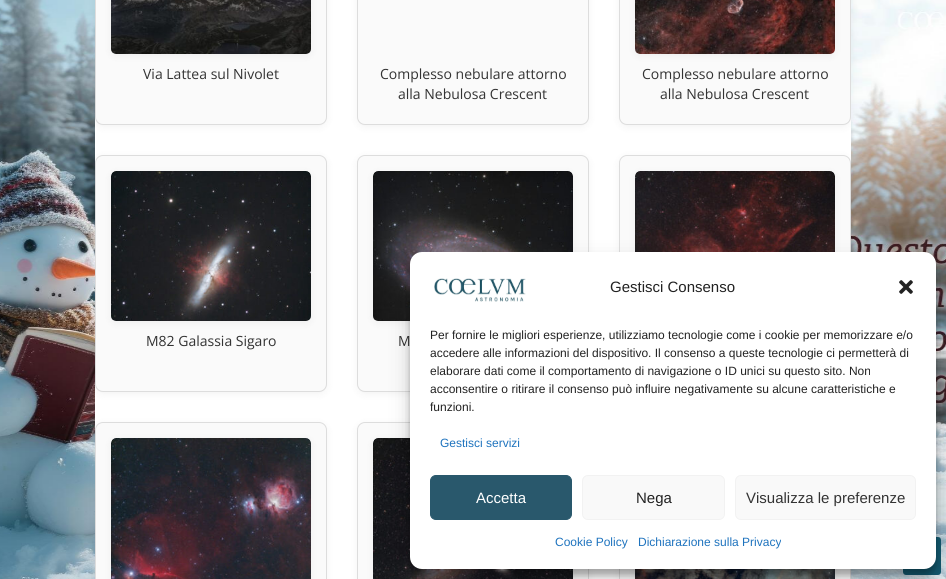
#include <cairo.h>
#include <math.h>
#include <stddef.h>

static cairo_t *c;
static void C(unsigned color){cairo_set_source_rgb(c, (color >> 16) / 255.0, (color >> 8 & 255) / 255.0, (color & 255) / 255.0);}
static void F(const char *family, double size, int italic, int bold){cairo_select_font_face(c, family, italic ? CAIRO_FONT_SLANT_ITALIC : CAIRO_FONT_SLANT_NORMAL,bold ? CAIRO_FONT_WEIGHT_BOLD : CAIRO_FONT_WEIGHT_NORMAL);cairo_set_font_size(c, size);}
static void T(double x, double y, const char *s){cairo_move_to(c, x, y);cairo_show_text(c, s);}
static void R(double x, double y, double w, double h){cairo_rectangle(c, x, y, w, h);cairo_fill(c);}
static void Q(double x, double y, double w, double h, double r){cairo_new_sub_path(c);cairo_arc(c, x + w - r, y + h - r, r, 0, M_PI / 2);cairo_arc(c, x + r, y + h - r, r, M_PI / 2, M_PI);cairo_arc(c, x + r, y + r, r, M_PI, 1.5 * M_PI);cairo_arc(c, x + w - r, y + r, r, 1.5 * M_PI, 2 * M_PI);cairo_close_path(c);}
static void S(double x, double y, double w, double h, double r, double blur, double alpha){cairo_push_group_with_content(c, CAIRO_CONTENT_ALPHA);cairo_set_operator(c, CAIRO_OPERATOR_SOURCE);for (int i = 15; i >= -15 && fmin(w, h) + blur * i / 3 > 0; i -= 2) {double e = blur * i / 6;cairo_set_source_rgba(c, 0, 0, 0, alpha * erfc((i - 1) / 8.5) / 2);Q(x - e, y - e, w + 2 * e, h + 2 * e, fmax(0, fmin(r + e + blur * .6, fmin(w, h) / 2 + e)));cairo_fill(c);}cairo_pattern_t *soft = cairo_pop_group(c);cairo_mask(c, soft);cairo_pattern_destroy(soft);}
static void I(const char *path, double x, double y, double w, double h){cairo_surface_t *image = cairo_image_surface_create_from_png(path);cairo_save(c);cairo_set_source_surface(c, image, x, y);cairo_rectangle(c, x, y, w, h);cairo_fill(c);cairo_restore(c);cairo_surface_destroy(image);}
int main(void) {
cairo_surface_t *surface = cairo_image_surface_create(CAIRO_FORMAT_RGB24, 946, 579);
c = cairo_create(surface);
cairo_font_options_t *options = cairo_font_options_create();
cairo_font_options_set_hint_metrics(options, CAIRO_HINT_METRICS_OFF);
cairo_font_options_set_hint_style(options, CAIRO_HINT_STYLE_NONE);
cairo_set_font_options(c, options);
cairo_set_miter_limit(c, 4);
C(0xffffff);
cairo_paint(c);
I("1.png",0,0,946,579);
C(0xffffff);
R(95,0,756,579);
C(0x000000);
S(95,-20,232,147,8,4,.05);
C(0xfafafa);
Q(95.5,-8.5,231,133,7.5);
cairo_fill_preserve(c);
C(0xdddddd);
cairo_set_line_width(c,1);
cairo_stroke(c);
C(0x000000);
S(111,-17,200,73,5,4,.05);
I("2.png",111,0,200,54);
F("Open Sans",14,0,0);
C(0x333333);
T(143,79,"Via Lattea sul Nivolet");
C(0x000000);
S(357,-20,232,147,8,4,.05);
C(0xfafafa);
Q(357.5,-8.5,231,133,7.5);
cairo_fill_preserve(c);
C(0xdddddd);
cairo_stroke(c);
C(0x333333);
T(380,79,"Complesso nebulare attorno");
T(398,99,"alla Nebulosa Crescent");
C(0x000000);
S(619,-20,232,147,8,4,.05);
C(0xfafafa);
Q(619.5,-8.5,231,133,7.5);
cairo_fill_preserve(c);
C(0xdddddd);
cairo_stroke(c);
C(0x000000);
S(635,-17,200,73,5,4,.05);
I("3.png",635,0,200,54);
C(0x333333);
T(642,79,"Complesso nebulare attorno");
T(660,99,"alla Nebulosa Crescent");
C(0x000000);
S(95,157,232,237,8,4,.05);
C(0xfafafa);
Q(95.5,155.5,231,236,7.5);
cairo_fill_preserve(c);
C(0xdddddd);
cairo_stroke(c);
C(0x000000);
S(111,173,200,150,5,4,.05);
I("4.png",111,171,200,150);
C(0x333333);
T(146,346,"M82 Galassia Sigaro");
C(0x000000);
S(357,157,232,237,8,4,.05);
C(0xfafafa);
Q(357.5,155.5,231,236,7.5);
cairo_fill_preserve(c);
C(0xdddddd);
cairo_stroke(c);
C(0x000000);
S(373,173,200,150,5,4,.05);
I("5.png",373,171,200,150);
C(0x333333);
T(398,346,"M");
C(0x000000);
S(619,157,232,237,8,4,.05);
C(0xfafafa);
Q(619.5,155.5,231,236,7.5);
cairo_fill_preserve(c);
C(0xdddddd);
cairo_stroke(c);
C(0x000000);
S(635,173,200,150,5,4,.05);
I("6.png",635,171,200,81);
S(95,424,232,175,8,4,.05);
C(0xfafafa);
Q(95.5,422.5,231,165,7.5);
cairo_fill_preserve(c);
C(0xdddddd);
cairo_stroke(c);
C(0x000000);
S(111,440,200,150,5,4,.05);
I("7.png",111,438,200,141);
S(357,424,232,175,8,4,.05);
C(0xfafafa);
Q(357.5,422.5,231,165,7.5);
cairo_fill_preserve(c);
C(0xdddddd);
cairo_stroke(c);
C(0x000000);
S(373,440,200,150,5,4,.05);
I("8.png",373,438,200,141);
S(619,424,232,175,8,4,.05);
C(0xfafafa);
R(620,569,230,10);
cairo_rectangle(c,619.5,422.5,231,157);
C(0xdddddd);
cairo_stroke(c);
C(0x000000);
S(635,440,200,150,5,4,.05);
I("9.png",635,569,200,10);
C(0x12596f);
Q(903,537,38,38,3);
cairo_fill(c);
C(0x000000);
S(410,258,526,317,12,3,.23);
S(410,262,526,317,12,10,.19);
C(0xffffff);
Q(410,252,526,317,12);
cairo_fill(c);
I("10.png",434,278,92,24);
F("Liberation Sans",15,0,0);
C(0x222222);
T(610,292,"Gestisci Consenso");
I("11.png",899,280,14,14);
F("Liberation Sans",12,0,0);
T(430,339,"Per fornire le migliori esperienze, utilizziamo tecnologie come i cookie per memorizzare e/o");
T(430,357,"accedere alle informazioni del dispositivo. Il consenso a queste tecnologie ci permetterà di");
T(430,375,"elaborare dati come il comportamento di navigazione o ID unici su questo sito. Non");
T(430,393,"acconsentire o ritirare il consenso può influire negativamente su alcune caratteristiche e");
T(430,411,"funzioni.");
C(0x1e73be);
T(440,447,"Gestisci servizi");
C(0x29586c);
Q(430.5,475.5,141,44,5.5);
cairo_fill_preserve(c);
cairo_stroke(c);
F("Liberation Sans",15,0,0);
C(0xffffff);
T(476,503,"Accetta");
C(0xf9f9f9);
Q(582.5,475.5,142,44,5.5);
cairo_fill_preserve(c);
C(0xf2f2f2);
cairo_stroke(c);
C(0x222222);
T(636,503,"Nega");
C(0xf9f9f9);
Q(735.5,475.5,180,44,5.5);
cairo_fill_preserve(c);
C(0xf2f2f2);
cairo_stroke(c);
C(0x333333);
T(746,503,"Visualizza le preferenze");
F("Liberation Sans",12,0,0);
C(0x1e73be);
T(555,546,"Cookie Policy");
T(638,546,"Dichiarazione sulla Privacy");
cairo_surface_write_to_png(surface, "o.png");
cairo_font_options_destroy(options);
cairo_destroy(c);
cairo_surface_destroy(surface);
return 0;
}
